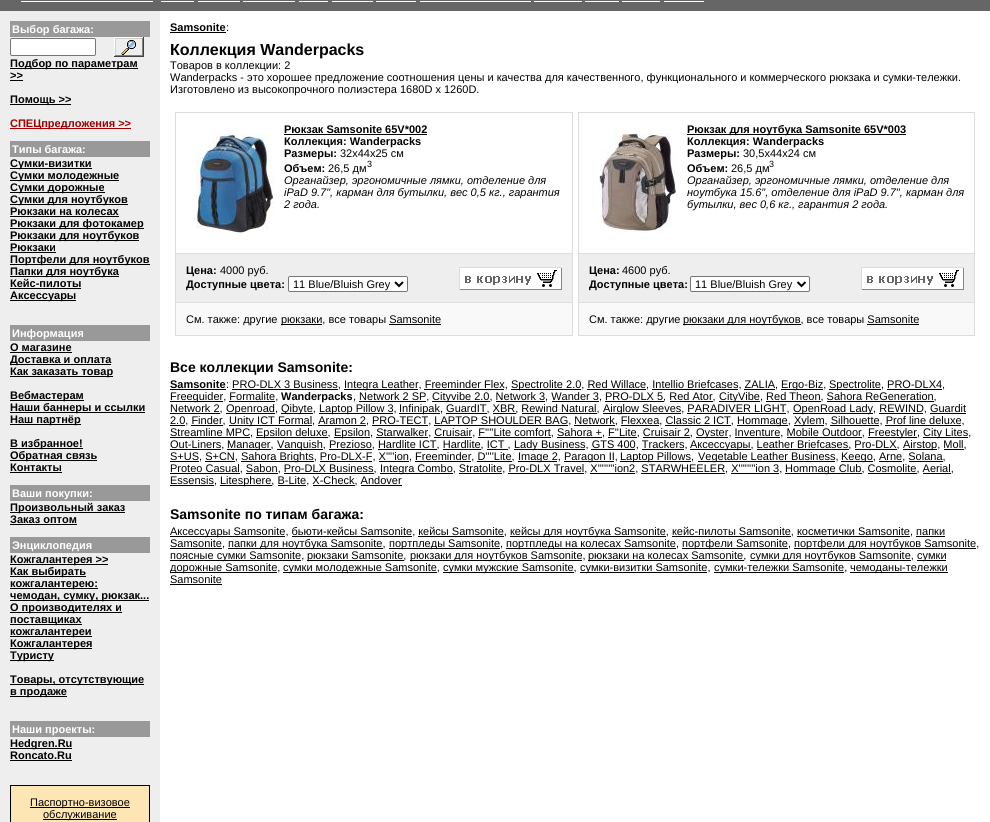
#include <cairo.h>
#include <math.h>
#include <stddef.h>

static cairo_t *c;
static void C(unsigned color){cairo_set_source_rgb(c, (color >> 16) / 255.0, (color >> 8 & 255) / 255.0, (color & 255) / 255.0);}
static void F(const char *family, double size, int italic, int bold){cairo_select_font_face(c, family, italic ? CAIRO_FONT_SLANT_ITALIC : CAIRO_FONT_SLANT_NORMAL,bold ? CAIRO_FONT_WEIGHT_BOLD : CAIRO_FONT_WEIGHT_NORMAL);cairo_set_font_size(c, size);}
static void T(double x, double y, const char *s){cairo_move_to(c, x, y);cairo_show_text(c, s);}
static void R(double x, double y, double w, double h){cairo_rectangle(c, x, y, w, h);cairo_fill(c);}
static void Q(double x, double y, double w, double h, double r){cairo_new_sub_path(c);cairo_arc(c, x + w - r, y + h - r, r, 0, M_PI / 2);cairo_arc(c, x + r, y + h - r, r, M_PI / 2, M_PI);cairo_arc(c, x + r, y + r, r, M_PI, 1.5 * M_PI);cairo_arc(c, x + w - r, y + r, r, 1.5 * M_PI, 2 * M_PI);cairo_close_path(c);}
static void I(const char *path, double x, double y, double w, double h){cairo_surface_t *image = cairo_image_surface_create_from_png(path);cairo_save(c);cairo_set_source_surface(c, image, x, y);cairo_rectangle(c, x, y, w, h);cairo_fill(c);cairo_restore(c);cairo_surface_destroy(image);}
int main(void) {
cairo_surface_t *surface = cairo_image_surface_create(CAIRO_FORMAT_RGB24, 990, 822);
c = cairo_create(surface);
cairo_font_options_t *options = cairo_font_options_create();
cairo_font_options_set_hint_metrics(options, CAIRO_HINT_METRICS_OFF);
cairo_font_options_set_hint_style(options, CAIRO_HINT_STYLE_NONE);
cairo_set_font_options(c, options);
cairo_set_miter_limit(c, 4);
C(0xffffff);
cairo_paint(c);
C(0x666666);
R(0,0,990,11);
C(0xffffff);
R(21,1,132,1);
R(161,1,33,1);
R(198,1,42,1);
R(243,1,52,1);
R(299,1,29,1);
R(332,1,41,1);
R(376,1,40,1);
R(420,1,111,1);
R(534,1,48,1);
R(585,1,34,1);
R(622,1,38,1);
R(664,1,40,1);
C(0xeeeeee);
R(0,11,160,811);
C(0x999999);
R(10,21,140,16);
F("Liberation Sans",11,0,1);
C(0xffffff);
T(12,33,"Выбор багажа:");
Q(10.5,38.5,85,17,1.5);
cairo_fill_preserve(c);
C(0x767676);
cairo_set_line_width(c,1);
cairo_stroke(c);
I("1.png",114,37,30,20);
C(0x000000);
R(10,68,128,1);
T(10,67,"Подбор по параметрам");
T(10,79,">>");
R(10,80,13,1);
R(10,104,61,1);
T(10,103,"Помощь >>");
C(0xa00000);
R(10,128,121,1);
T(10,127,"СПЕЦпредложения >>");
C(0x999999);
R(10,141,140,16);
C(0xffffff);
T(12,153,"Типы багажа:");
C(0x000000);
R(10,168,82,1);
T(10,167,"Сумки-визитки");
R(10,180,109,1);
T(10,179,"Сумки молодежные");
R(10,192,95,1);
T(10,191,"Сумки дорожные");
R(10,204,118,1);
T(10,203,"Сумки для ноутбуков");
T(10,215,"Рюкзаки на колесах");
R(10,216,109,1);
R(10,228,134,1);
T(10,227,"Рюкзаки для фотокамер");
R(10,240,129,1);
T(10,239,"Рюкзаки для ноутбуков");
T(10,251,"Рюкзаки");
R(10,252,46,1);
R(10,264,140,1);
T(10,263,"Портфели для ноутбуков");
R(10,276,109,1);
T(10,275,"Папки для ноутбука");
T(10,287,"Кейс-пилоты");
R(10,288,71,1);
R(10,300,66,1);
T(10,299,"Аксессуары");
C(0x999999);
R(10,325,140,16);
C(0xffffff);
T(12,337,"Информация");
C(0x000000);
T(10,351,"О магазине");
R(10,352,62,1);
R(10,364,101,1);
T(10,363,"Доставка и оплата");
R(10,376,103,1);
T(10,375,"Как заказать товар");
R(10,400,74,1);
T(10,399,"Вебмастерам");
R(10,412,135,1);
T(10,411,"Наши баннеры и ссылки");
R(10,424,71,1);
T(10,423,"Наш партнёр");
R(10,448,73,1);
T(10,447,"В избранное!");
R(10,460,87,1);
T(10,459,"Обратная связь");
T(10,471,"Контакты");
R(10,472,52,1);
C(0x999999);
R(10,485,140,16);
C(0xffffff);
T(12,497,"Ваши покупки:");
C(0x000000);
R(10,512,115,1);
T(10,511,"Произвольный заказ");
T(10,523,"Заказ оптом");
R(10,524,67,1);
C(0x999999);
R(10,537,140,16);
C(0xffffff);
T(12,549,"Энциклопедия");
C(0x000000);
R(10,564,98,1);
T(10,563,"Кожгалантерея >>");
R(10,576,76,1);
T(10,575,"Как выбирать");
R(10,588,88,1);
T(10,587,"кожгалантерею:");
R(10,600,139,1);
T(10,599,"чемодан, сумку, рюкзак...");
R(10,612,112,1);
T(10,611,"О производителях и");
R(10,624,72,1);
T(10,623,"поставщиках");
R(10,636,82,1);
T(10,635,"кожгалантереи");
R(10,648,82,1);
T(10,647,"Кожгалантерея");
R(10,660,44,1);
T(10,659,"Туристу");
R(10,684,134,1);
T(10,683,"Товары, отсутствующие");
R(10,696,57,1);
T(10,695,"в продаже");
C(0x999999);
R(10,721,140,16);
C(0xffffff);
T(12,733,"Наши проекты:");
C(0x000000);
R(10,748,62,1);
T(10,747,"Hedgren.Ru");
T(10,759,"Roncato.Ru");
R(10,760,62,1);
C(0xfde6b3);
cairo_rectangle(c,10.5,785.5,139,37);
cairo_fill_preserve(c);
C(0x000000);
cairo_stroke(c);
R(30,807,100,1);
F("Liberation Sans",11,0,0);
T(30,806,"Паспортно-визовое");
R(43,819,74,1);
T(43,818,"обслуживание");
F("Liberation Sans",11,0,1);
T(170,31,"Samsonite");
R(170,32,56,1);
F("Liberation Sans",11,0,0);
T(226,31,":");
F("Liberation Sans",16,0,1);
T(170,55,"Коллекция Wanderpacks");
F("Liberation Sans",11,0,0);
T(170,69,"Товаров в коллекции: 2");
T(170,81,"Wanderpacks - это хорошее предложение соотношения цены и качества для качественного, функционального и коммерческого рюкзака и сумки-тележки.");
T(170,93,"Изготовлено из высокопрочного полиэстера 1680D x 1260D.");
C(0xdddddd);
R(175,112,398,224);
C(0xffffff);
R(176,113,396,140);
F("Liberation Sans",11,0,1);
C(0x000000);
T(284,133,"Рюкзак Samsonite 65V*002");
R(284,134,143,1);
I("2.png",196,133,78,100);
T(284,145,"Коллекция: Wanderpacks");
T(284,157,"Размеры:");
F("Liberation Sans",11,0,0);
T(340,157,"32x44x25 см");
F("Liberation Sans",11,0,1);
T(284,172,"Объем:");
F("Liberation Sans",11,0,0);
T(328,172,"26,5 дм");
F("Liberation Sans",9,0,0);
T(367,167,"3");
F("Liberation Sans",11,1,0);
T(284,184,"Органайзер, эргономичные лямки, отделение для");
T(284,196,"iPaD 9.7\", карман для бутылки, вес 0,5 кг., гарантия");
T(284,208,"2 года.");
C(0xeeeeee);
R(176,254,396,48);
F("Liberation Sans",11,0,1);
C(0x000000);
T(186,274,"Цена:");
F("Liberation Sans",11,0,0);
T(220,274,"4000 руб.");
F("Liberation Sans",11,0,1);
T(186,288,"Доступные цвета:");
C(0xffffff);
Q(288.5,276.5,119,15,1.5);
cairo_fill_preserve(c);
C(0x767676);
cairo_stroke(c);
cairo_new_path(c);
cairo_move_to(c,395,282);
cairo_line_to(c,399,286);
cairo_line_to(c,403,282);
C(0x000000);
cairo_set_line_width(c,2);
cairo_stroke(c);
F("Liberation Sans",11,0,0);
T(293,288,"11 Blue/Bluish Grey");
I("3.png",459,267,103,23);
C(0xf9f9f9);
R(176,303,396,32);
C(0x000000);
T(186,323,"См. также: другие");
R(281,324,41,1);
T(281,323,"рюкзаки, все товары Samsonite");
R(389,324,52,1);
C(0xdddddd);
R(578,112,397,224);
C(0xffffff);
R(579,113,395,140);
C(0x000000);
R(687,134,219,1);
F("Liberation Sans",11,0,1);
T(687,133,"Рюкзак для ноутбука Samsonite 65V*003");
I("4.png",599,133,78,100);
T(687,145,"Коллекция: Wanderpacks");
T(687,157,"Размеры:");
F("Liberation Sans",11,0,0);
T(743,157,"30,5x44x24 см");
F("Liberation Sans",11,0,1);
T(687,172,"Объем:");
F("Liberation Sans",11,0,0);
T(731,172,"26,5 дм");
F("Liberation Sans",9,0,0);
T(769,167,"3");
F("Liberation Sans",11,1,0);
T(687,184,"Органайзер, эргономичные лямки, отделение для");
T(687,196,"ноутбука 15.6\", отделение для iPaD 9.7\", карман для");
T(687,208,"бутылки, вес 0,6 кг., гарантия 2 года.");
C(0xeeeeee);
R(579,254,395,48);
F("Liberation Sans",11,0,1);
C(0x000000);
T(589,274,"Цена:");
F("Liberation Sans",11,0,0);
T(622,274,"4600 руб.");
F("Liberation Sans",11,0,1);
T(589,288,"Доступные цвета:");
C(0xffffff);
Q(690.5,276.5,119,15,1.5);
cairo_fill_preserve(c);
C(0x767676);
cairo_set_line_width(c,1);
cairo_stroke(c);
cairo_new_path(c);
cairo_move_to(c,797.5,282);
cairo_line_to(c,801.5,286);
cairo_line_to(c,805.5,282);
C(0x000000);
cairo_set_line_width(c,2);
cairo_stroke(c);
F("Liberation Sans",11,0,0);
T(695,288,"11 Blue/Bluish Grey");
I("3.png",861,267,103,23);
C(0xf9f9f9);
R(579,303,395,32);
C(0x000000);
T(589,323,"См. также: другие");
R(683,324,118,1);
T(683,323,"рюкзаки для ноутбуков, все товары Samsonite");
R(867,324,52,1);
F("Liberation Sans",14,0,1);
T(170,372,"Все коллекции Samsonite:");
F("Liberation Sans",11,0,1);
T(170,388,"Samsonite");
R(170,389,56,1);
F("Liberation Sans",11,0,0);
T(226,388,": PRO-DLX 3 Business,");
R(344,389,74,1);
T(344,388,"Integra Leather, Freeminder Flex,");
R(511,389,70,1);
T(511,388,"Spectrolite 2.0, Red Willace, Intellio Briefcases, ZALIA,");
R(781,389,42,1);
T(781,388,"Ergo-Biz,");
R(829,389,52,1);
T(829,388,"Spectrolite, PRO-DLX4,");
R(232,389,106,1);
R(424,389,80,1);
R(587,389,59,1);
R(652,389,86,1);
R(744,389,31,1);
R(887,389,55,1);
R(170,401,53,1);
T(170,400,"Freeguider, Formalite,");
F("Liberation Sans",11,0,1);
T(281,400,"Wanderpacks");
F("Liberation Sans",11,0,0);
T(353,400,", Network 2 SP,");
R(432,401,58,1);
T(432,400,"Cityvibe 2.0, Network 3, Wander 3, PRO-DLX 5, Red Ator,");
R(719,401,41,1);
T(719,400,"CityVibe, Red Theon, Sahora ReGeneration,");
R(229,401,46,1);
R(359,401,67,1);
R(496,401,49,1);
R(552,401,47,1);
R(605,401,59,1);
R(670,401,43,1);
R(766,401,55,1);
R(827,401,107,1);
R(170,413,50,1);
T(170,412,"Network 2,");
R(226,413,49,1);
T(226,412,"Openroad,");
R(281,413,32,1);
T(281,412,"Qibyte,");
R(319,413,74,1);
T(319,412,"Laptop Pillow 3,");
R(399,413,41,1);
T(399,412,"Infinipak, GuardIT, XBR, Rewind Natural,");
R(603,413,78,1);
T(603,412,"Airglow Sleeves, PARADIVER LIGHT,");
R(793,413,80,1);
T(793,412,"OpenRoad Lady, REWIND, Guardit");
R(446,413,41,1);
R(493,413,23,1);
R(522,413,75,1);
R(687,413,99,1);
R(879,413,44,1);
R(170,425,15,1);
T(170,424,"2.0, Finder,");
R(930,413,36,1);
R(229,425,83,1);
T(229,424,"Unity ICT Formal, Aramon 2, PRO-TECT, LAPTOP SHOULDER BAG, Network, Flexxea, Classic 2 ICT,");
R(737,425,51,1);
T(737,424,"Hommage,");
R(794,425,30,1);
T(794,424,"Xylem, Silhouette, Prof line deluxe,");
R(191,425,32,1);
R(318,425,48,1);
R(372,425,56,1);
R(434,425,134,1);
R(574,425,41,1);
R(621,425,38,1);
R(665,425,66,1);
R(830,425,49,1);
R(885,425,76,1);
R(170,437,80,1);
T(170,436,"Streamline MPC,");
R(256,437,72,1);
T(256,436,"Epsilon deluxe,");
R(334,437,36,1);
T(334,436,"Epsilon, Starwalker, Cruisair, F''''Lite comfort, Sahora +, F''Lite, Cruisair 2,");
R(696,437,32,1);
T(696,436,"Oyster, Inventure, Mobile Outdoor,");
R(868,437,49,1);
T(868,436,"Freestyler,");
R(923,437,45,1);
T(923,436,"City Lites,");
R(376,437,52,1);
R(434,437,38,1);
R(478,437,73,1);
R(557,437,45,1);
R(608,437,29,1);
R(643,437,47,1);
R(735,437,45,1);
R(787,437,75,1);
R(170,449,51,1);
T(170,448,"Out-Liners,");
R(227,449,44,1);
T(227,448,"Manager,");
R(277,449,46,1);
T(277,448,"Vanquish, Prezioso, Hardlite ICT, Hardlite, ICT ,");
R(514,449,71,1);
T(514,448,"Lady Business, GTS 400, Trackers,");
R(690,449,61,1);
T(690,448,"Аксессуары, Leather Briefcases, Pro-DLX,");
R(903,449,34,1);
T(903,448,"Airstop, Moll,");
R(329,449,43,1);
R(378,449,59,1);
R(443,449,38,1);
R(487,449,21,1);
R(591,449,44,1);
R(642,449,42,1);
R(757,449,92,1);
R(855,449,42,1);
R(944,449,20,1);
R(170,461,29,1);
T(170,460,"S+US, S+CN,");
R(241,461,73,1);
T(241,460,"Sahora Brights, Pro-DLX-F, X''''ion, Freeminder, D''''Lite,");
R(518,461,39,1);
T(518,460,"Image 2,");
R(564,461,50,1);
T(564,460,"Paragon II,");
R(620,461,71,1);
T(620,460,"Laptop Pillows,");
R(698,461,137,1);
T(698,460,"Vegetable Leather Business,");
R(841,461,32,1);
T(841,460,"Keego, Arne, Solana,");
R(205,461,30,1);
R(320,461,52,1);
R(379,461,30,1);
R(415,461,56,1);
R(477,461,35,1);
R(879,461,23,1);
R(909,461,34,1);
R(170,473,70,1);
T(170,472,"Proteo Casual, Sabon, Pro-DLX Business,");
R(380,473,73,1);
T(380,472,"Integra Combo, Stratolite, Pro-DLX Travel, X''''''''ion2, STARWHEELER, X''''''''ion 3,");
R(785,473,77,1);
T(785,472,"Hommage Club, Cosmolite, Aerial,");
R(246,473,32,1);
R(284,473,90,1);
R(459,473,43,1);
R(508,473,76,1);
R(590,473,45,1);
R(641,473,84,1);
R(731,473,48,1);
R(868,473,49,1);
R(923,473,28,1);
R(170,485,44,1);
T(170,484,"Essensis,");
R(220,485,52,1);
T(220,484,"Litesphere, B-Lite, X-Check, Andover");
R(278,485,28,1);
R(313,485,42,1);
R(361,485,41,1);
F("Liberation Sans",14,0,1);
T(170,519,"Samsonite по типам багажа:");
R(170,536,115,1);
F("Liberation Sans",11,0,0);
T(170,535,"Аксессуары Samsonite, бьюти-кейсы Samsonite, кейсы Samsonite,");
R(510,536,156,1);
T(510,535,"кейсы для ноутбука Samsonite, кейс-пилоты Samsonite, косметички Samsonite, папки");
R(292,536,120,1);
R(418,536,86,1);
R(672,536,119,1);
R(797,536,113,1);
R(170,548,52,1);
T(170,547,"Samsonite,");
R(916,536,29,1);
R(228,548,155,1);
T(228,547,"папки для ноутбука Samsonite,");
R(389,548,111,1);
T(389,547,"портпледы Samsonite,");
R(506,548,170,1);
T(506,547,"портпледы на колесах Samsonite,");
R(682,548,106,1);
T(682,547,"портфели Samsonite,");
R(794,548,182,1);
T(794,547,"портфели для ноутбуков Samsonite,");
R(170,560,131,1);
T(170,559,"поясные сумки Samsonite,");
R(307,560,97,1);
T(307,559,"рюкзаки Samsonite,");
R(410,560,172,1);
T(410,559,"рюкзаки для ноутбуков Samsonite,");
R(588,560,156,1);
T(588,559,"рюкзаки на колесах Samsonite,");
R(750,560,161,1);
T(750,559,"сумки для ноутбуков Samsonite,");
R(917,560,29,1);
T(917,559,"сумки");
R(170,572,107,1);
T(170,571,"дорожные Samsonite,");
R(283,572,154,1);
T(283,571,"сумки молодежные Samsonite,");
R(443,572,131,1);
T(443,571,"сумки мужские Samsonite,");
R(580,572,127,1);
T(580,571,"сумки-визитки Samsonite,");
R(714,572,130,1);
T(714,571,"сумки-тележки Samsonite,");
R(850,572,98,1);
T(850,571,"чемоданы-тележки");
T(170,583,"Samsonite");
R(170,584,52,1);
cairo_surface_write_to_png(surface, "o.png");
cairo_font_options_destroy(options);
cairo_destroy(c);
cairo_surface_destroy(surface);
return 0;
}
